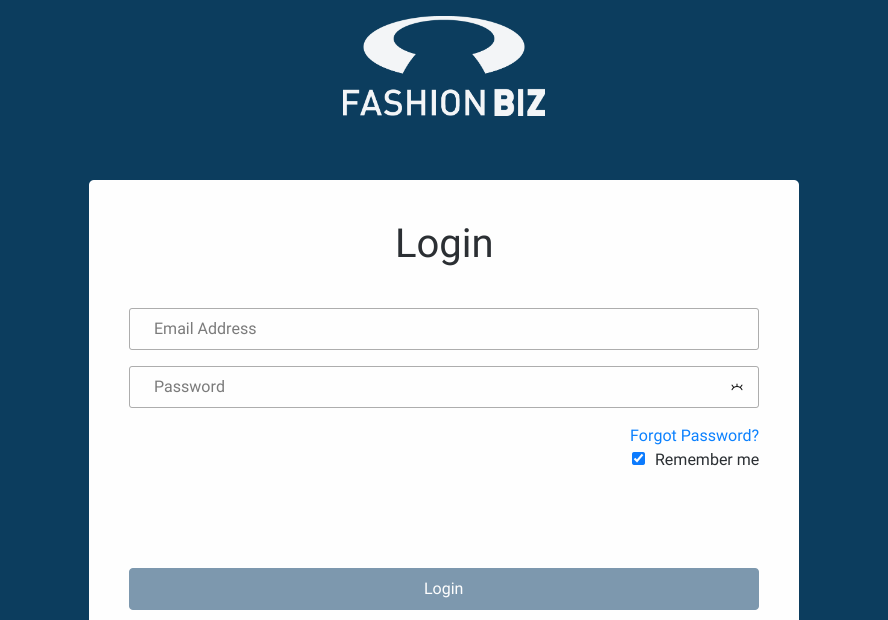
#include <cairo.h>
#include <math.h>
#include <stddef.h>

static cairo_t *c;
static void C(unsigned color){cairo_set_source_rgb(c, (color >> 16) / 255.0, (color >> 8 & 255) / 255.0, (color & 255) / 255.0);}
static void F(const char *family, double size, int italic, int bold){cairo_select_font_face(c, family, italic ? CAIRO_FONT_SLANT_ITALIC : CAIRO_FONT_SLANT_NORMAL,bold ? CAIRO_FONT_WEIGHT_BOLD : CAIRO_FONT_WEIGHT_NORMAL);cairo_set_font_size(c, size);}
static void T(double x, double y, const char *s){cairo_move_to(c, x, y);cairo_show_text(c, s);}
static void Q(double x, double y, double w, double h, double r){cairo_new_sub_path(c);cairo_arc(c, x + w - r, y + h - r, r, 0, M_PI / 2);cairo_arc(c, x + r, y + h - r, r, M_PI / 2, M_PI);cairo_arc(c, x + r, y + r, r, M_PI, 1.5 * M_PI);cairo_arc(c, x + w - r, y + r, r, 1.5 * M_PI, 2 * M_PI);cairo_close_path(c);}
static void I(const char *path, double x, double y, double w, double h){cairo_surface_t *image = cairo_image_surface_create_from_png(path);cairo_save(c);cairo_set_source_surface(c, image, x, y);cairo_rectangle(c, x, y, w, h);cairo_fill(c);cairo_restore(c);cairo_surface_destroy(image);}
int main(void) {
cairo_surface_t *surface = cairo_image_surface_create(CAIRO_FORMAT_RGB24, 888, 620);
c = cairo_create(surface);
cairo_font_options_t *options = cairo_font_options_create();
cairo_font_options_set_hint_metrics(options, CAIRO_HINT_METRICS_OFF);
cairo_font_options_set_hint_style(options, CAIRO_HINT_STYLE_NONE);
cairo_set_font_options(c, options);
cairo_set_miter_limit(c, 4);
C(0x0c3d5e);
cairo_paint(c);
I("1.png",343,16,202,100);
C(0xfefefe);
Q(89,180,710,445,5);
cairo_fill(c);
F("Roboto",40,0,0);
C(0x2b2f33);
T(395,257,"Login");
Q(129.5,308.5,629,41,2.5);
C(0xadadad);
cairo_set_line_width(c,1);
cairo_stroke(c);
F("Roboto",16,0,0);
C(0x7b7b7b);
T(154,334,"Email Address");
Q(129.5,366.5,629,41,2.5);
C(0xadadad);
cairo_stroke(c);
C(0x7b7b7b);
T(154,392,"Password");
I("2.png",731,383,12,8);
C(0x0c81fe);
T(630,441,"Forgot Password?");
C(0x0c7bfe);
Q(632,452,13,13,2);
cairo_fill(c);
cairo_new_path(c);
cairo_move_to(c,634.5,458.5);
cairo_line_to(c,637,461);
cairo_line_to(c,642.5,454.5);
C(0xfefefe);
cairo_set_line_width(c,2.1);
cairo_stroke(c);
C(0x2b2f33);
T(655,465,"Remember me");
C(0x7d98ae);
Q(129,568,630,42,4);
cairo_fill(c);
C(0xfefefe);
T(424,594,"Login");
cairo_surface_write_to_png(surface, "o.png");
cairo_font_options_destroy(options);
cairo_destroy(c);
cairo_surface_destroy(surface);
return 0;
}
